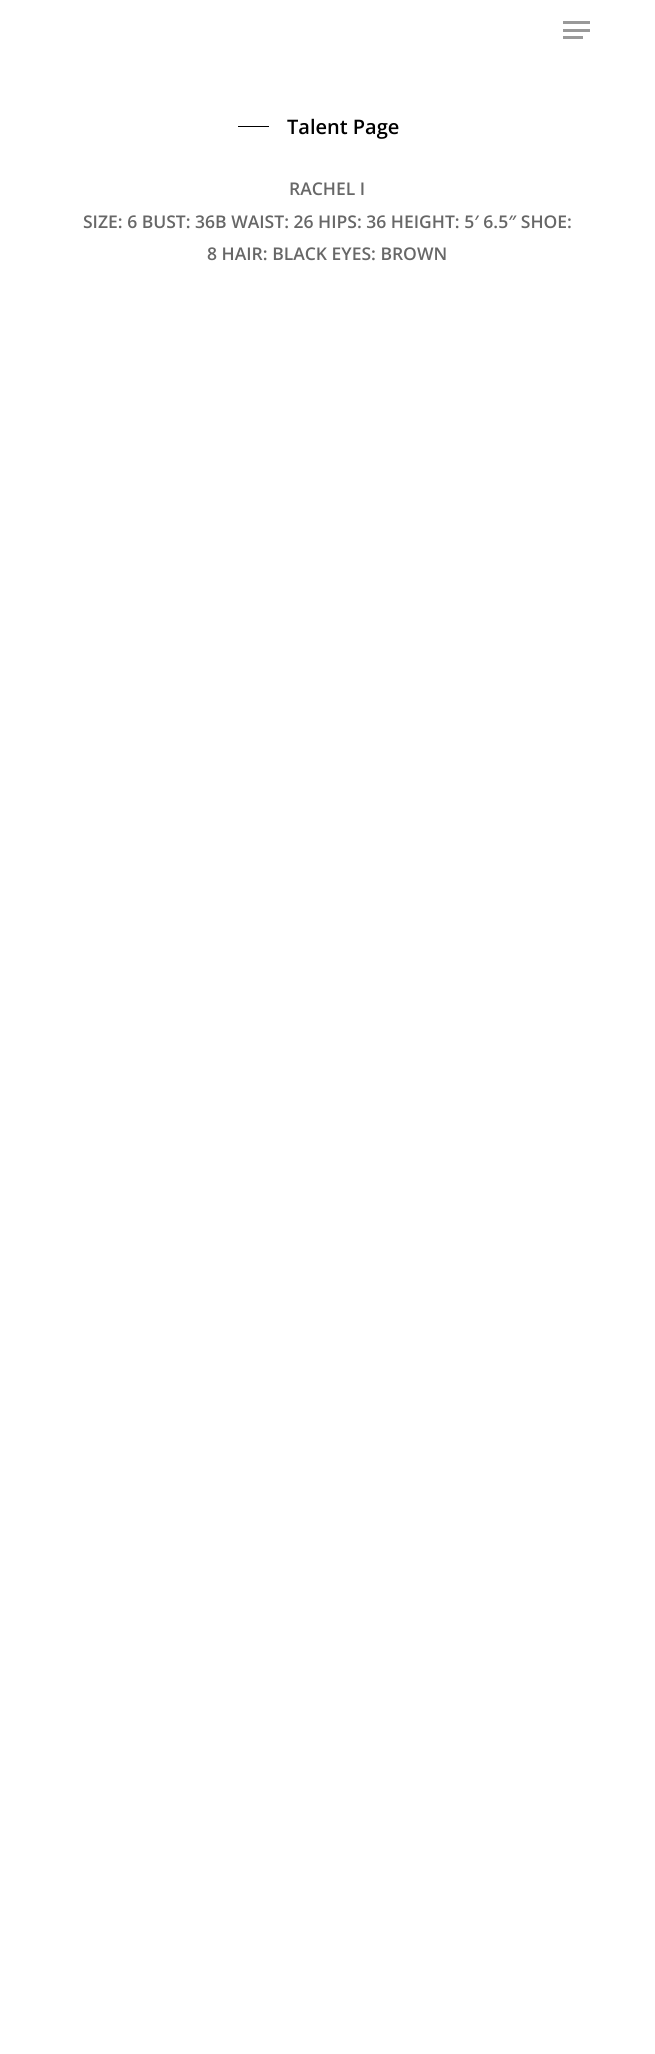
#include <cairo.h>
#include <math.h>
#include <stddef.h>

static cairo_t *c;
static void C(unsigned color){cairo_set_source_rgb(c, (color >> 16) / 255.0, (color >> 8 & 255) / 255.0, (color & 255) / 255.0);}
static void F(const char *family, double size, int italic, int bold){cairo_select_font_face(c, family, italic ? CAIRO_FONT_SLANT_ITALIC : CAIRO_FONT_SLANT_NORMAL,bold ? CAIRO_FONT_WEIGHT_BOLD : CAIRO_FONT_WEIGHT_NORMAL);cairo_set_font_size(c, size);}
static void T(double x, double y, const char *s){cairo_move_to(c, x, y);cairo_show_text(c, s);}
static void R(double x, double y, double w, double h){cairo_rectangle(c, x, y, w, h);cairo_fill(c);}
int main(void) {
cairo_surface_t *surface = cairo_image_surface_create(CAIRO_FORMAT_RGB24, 655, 2054);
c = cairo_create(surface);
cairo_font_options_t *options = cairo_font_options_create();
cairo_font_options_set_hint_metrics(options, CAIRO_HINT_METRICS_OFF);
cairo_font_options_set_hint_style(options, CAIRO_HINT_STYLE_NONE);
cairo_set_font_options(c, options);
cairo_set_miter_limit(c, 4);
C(0xffffff);
cairo_paint(c);
C(0x999999);
R(563,21,27,3);
R(563,36,20,3);
R(563,29,27,3);
C(0x000000);
R(238,126,31,1);
F("Open Sans SemiBold",20,0,0);
T(287,134,"Talent Page");
F("Open Sans SemiBold",17.5,0,0);
C(0x676767);
T(289,195,"RACHEL I");
T(83,228,"SIZE: 6 BUST: 36B WAIST: 26 HIPS: 36 HEIGHT: 5′ 6.5″ SHOE:");
T(207,260,"8 HAIR: BLACK EYES: BROWN");
cairo_surface_write_to_png(surface, "o.png");
cairo_font_options_destroy(options);
cairo_destroy(c);
cairo_surface_destroy(surface);
return 0;
}
